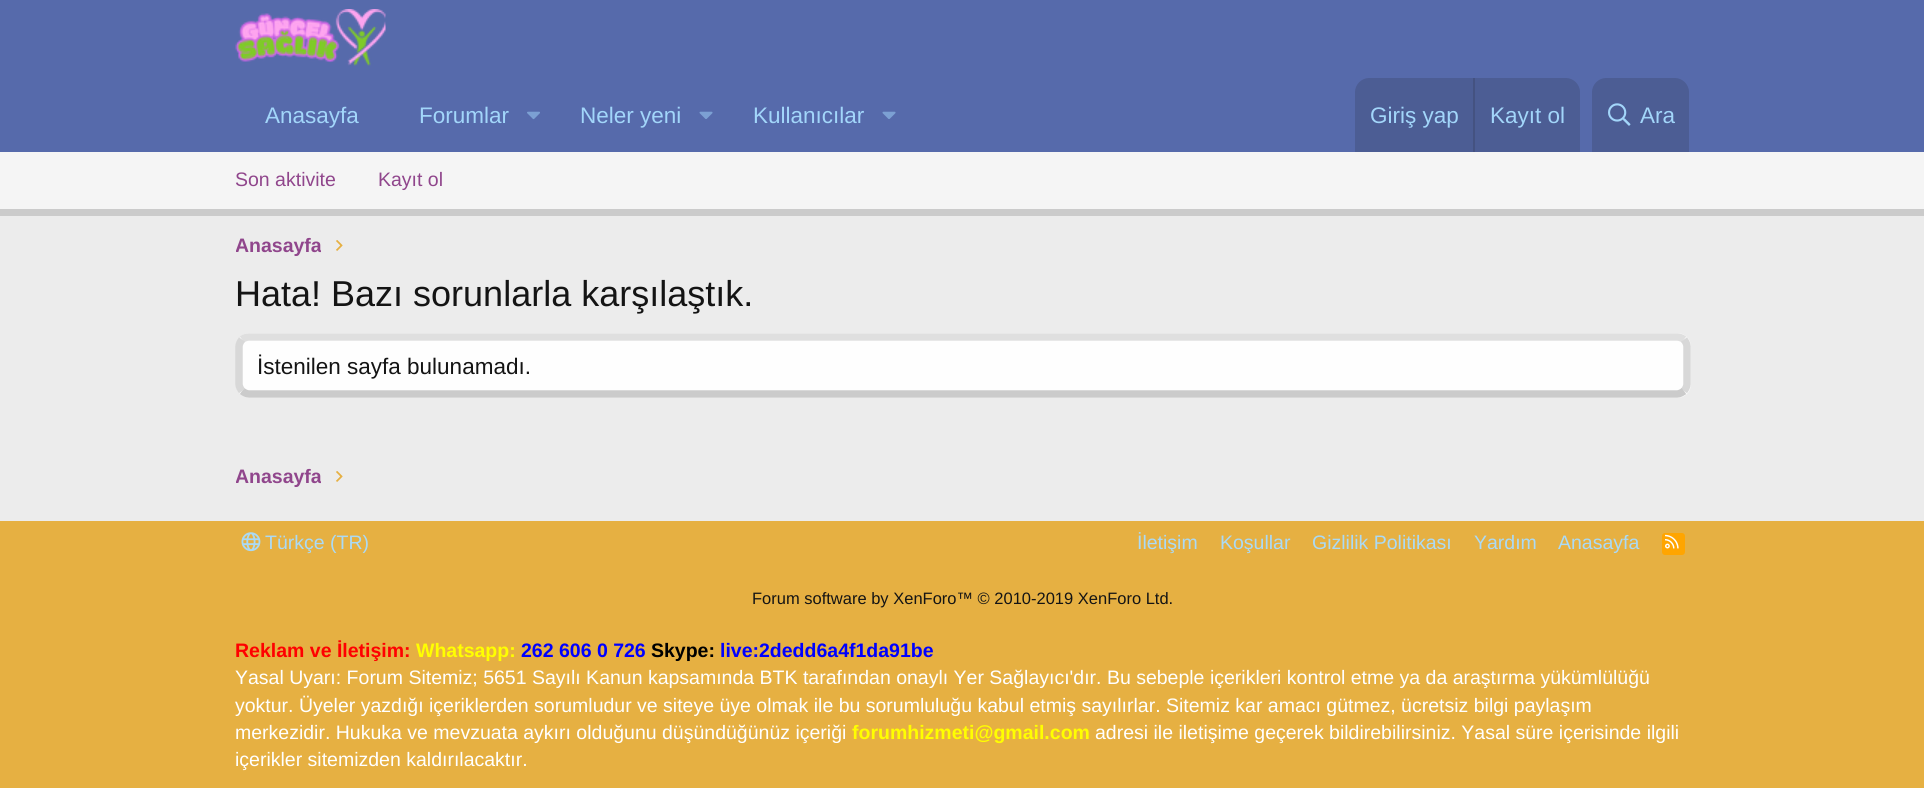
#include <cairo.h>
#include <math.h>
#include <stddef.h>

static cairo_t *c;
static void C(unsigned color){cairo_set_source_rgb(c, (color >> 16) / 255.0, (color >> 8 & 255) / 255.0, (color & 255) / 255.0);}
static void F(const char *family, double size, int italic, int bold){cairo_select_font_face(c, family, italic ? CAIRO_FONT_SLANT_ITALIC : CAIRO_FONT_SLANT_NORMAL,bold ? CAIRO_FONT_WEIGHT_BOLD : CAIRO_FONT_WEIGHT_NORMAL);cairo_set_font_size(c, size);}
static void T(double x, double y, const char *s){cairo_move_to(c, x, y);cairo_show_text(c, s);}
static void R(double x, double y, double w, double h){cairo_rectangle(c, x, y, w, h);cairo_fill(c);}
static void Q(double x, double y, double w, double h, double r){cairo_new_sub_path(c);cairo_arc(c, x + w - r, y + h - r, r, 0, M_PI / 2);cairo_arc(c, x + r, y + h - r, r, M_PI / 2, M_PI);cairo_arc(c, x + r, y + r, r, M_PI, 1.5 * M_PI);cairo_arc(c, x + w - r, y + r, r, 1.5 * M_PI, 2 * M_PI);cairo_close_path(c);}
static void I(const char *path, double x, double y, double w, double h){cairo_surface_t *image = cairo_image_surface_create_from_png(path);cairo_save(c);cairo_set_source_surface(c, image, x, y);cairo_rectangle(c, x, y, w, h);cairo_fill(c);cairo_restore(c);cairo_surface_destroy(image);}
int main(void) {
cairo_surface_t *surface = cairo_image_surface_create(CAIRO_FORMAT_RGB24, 1924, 788);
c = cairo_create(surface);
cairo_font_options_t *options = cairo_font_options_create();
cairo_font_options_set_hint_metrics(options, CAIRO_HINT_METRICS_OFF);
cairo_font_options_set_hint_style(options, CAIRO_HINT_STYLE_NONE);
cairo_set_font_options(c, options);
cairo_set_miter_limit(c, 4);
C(0xececec);
cairo_paint(c);
C(0x566aab);
R(0,0,1924,152);
I("1.png",235,9,151,57);
F("Liberation Sans",22.5,0,0);
C(0xa2d6fa);
T(265,123,"Anasayfa");
T(419,123,"Forumlar");
I("2.png",527,111,13,9);
T(580,123,"Neler yeni");
I("3.png",699,111,14,8);
T(753,123,"Kullanıcılar");
I("3.png",882,111,14,8);
C(0x4c5d94);
cairo_new_path(c);
cairo_move_to(c,1369,78);
cairo_line_to(c,1566,78);
cairo_curve_to(c,1573.5,78,1580,84.5,1580,92);
cairo_line_to(c,1580,152);
cairo_line_to(c,1355,152);
cairo_line_to(c,1355,92);
cairo_curve_to(c,1355,84.5,1361.5,78,1369,78);
cairo_close_path(c);
cairo_fill(c);
C(0xa2d6fa);
T(1370,123,"Giriş yap");
C(0x445281);
R(1473,78,2,74);
C(0xa2d6fa);
T(1490,123,"Kayıt ol");
C(0x4c5d94);
cairo_new_path(c);
cairo_move_to(c,1606,78);
cairo_line_to(c,1675,78);
cairo_curve_to(c,1682.5,78,1689,84.5,1689,92);
cairo_line_to(c,1689,152);
cairo_line_to(c,1592,152);
cairo_line_to(c,1592,92);
cairo_curve_to(c,1592,84.5,1598.5,78,1606,78);
cairo_close_path(c);
cairo_fill(c);
I("4.png",1608,103,23,23);
C(0xa2d6fa);
T(1640,123,"Ara");
C(0xf5f5f5);
R(0,152,1924,57);
C(0xcbcbcb);
R(0,209,1924,7);
F("Liberation Sans",19.5,0,0);
C(0x90468c);
T(235,186,"Son aktivite");
T(378,186,"Kayıt ol");
cairo_save(c);
cairo_rectangle(c,236,231,85,30);
cairo_clip(c);
F("Liberation Sans",19.5,0,1);
T(235,252,"Anasayfa");
cairo_restore(c);
I("5.png",336,240,7,11);
F("Liberation Sans",36,0,0);
C(0x141414);
T(235,306,"Hata! Bazı sorunlarla karşılaştık.");
C(0xfefefe);
Q(236,333,1455,65,14);
cairo_fill(c);
cairo_new_path(c);
cairo_move_to(c,242,339.5);
cairo_curve_to(c,244,338,246.5,337,249,337);
cairo_line_to(c,1677,337);
cairo_curve_to(c,1679.5,337,1682,338,1684,339.5);
C(0xdfdfdf);
cairo_set_line_width(c,7.5);
cairo_stroke(c);
cairo_new_path(c);
cairo_move_to(c,1684,339.5);
cairo_curve_to(c,1685.5,341.5,1687,344,1687,346.5);
cairo_line_to(c,1687,384);
cairo_curve_to(c,1687,386.5,1685.5,389,1684,391);
C(0xd8d8d8);
cairo_stroke(c);
cairo_new_path(c);
cairo_move_to(c,1684,391);
cairo_curve_to(c,1682,392.5,1679.5,394,1677,394);
cairo_line_to(c,249,394);
cairo_curve_to(c,246.5,394,244,392.5,242,391);
C(0xcbcbcb);
cairo_stroke(c);
cairo_new_path(c);
cairo_move_to(c,242,391);
cairo_curve_to(c,240.5,389,239,386.5,239,384);
cairo_line_to(c,239,346.5);
cairo_curve_to(c,239,344,240.5,341.5,242,339.5);
C(0xd8d8d8);
cairo_stroke(c);
F("Liberation Sans",22.5,0,0);
C(0x141414);
T(257,374,"İstenilen sayfa bulunamadı.");
cairo_save(c);
cairo_rectangle(c,236,462,85,29);
cairo_clip(c);
F("Liberation Sans",19.5,0,1);
C(0x90468c);
T(235,483,"Anasayfa");
cairo_restore(c);
I("5.png",336,471,7,11);
C(0xe6b042);
R(0,521,1924,267);
I("6.png",241,532,20,20);
F("Liberation Sans",19.5,0,0);
C(0xaadaf6);
T(265,549,"Türkçe (TR)");
T(1137,549,"İletişim");
T(1220,549,"Koşullar");
T(1312,549,"Gizlilik Politikası");
T(1474,549,"Yardım");
T(1558,549,"Anasayfa");
C(0xffa500);
Q(1662,533,23,22,3);
cairo_fill(c);
I("7.png",1665,534,14,15);
F("Liberation Sans",16.5,0,0);
C(0x141414);
T(752,604,"Forum software by XenForo™ © 2010-2019 XenForo Ltd.");
F("Liberation Sans",19.5,0,1);
C(0xff0000);
T(235,657,"Reklam ve İletişim:");
C(0xffff00);
T(416,657,"Whatsapp:");
C(0x0000ff);
T(521,657,"262 606 0 726");
C(0x000000);
T(651,657,"Skype:");
C(0x0000ff);
T(720,657,"live:2dedd6a4f1da91be");
F("Liberation Sans",19.5,0,0);
C(0xffffff);
T(235,684,"Yasal Uyarı: Forum Sitemiz; 5651 Sayılı Kanun kapsamında BTK tarafından onaylı Yer Sağlayıcı'dır. Bu sebeple içerikleri kontrol etme ya da araştırma yükümlülüğü");
T(235,712,"yoktur. Üyeler yazdığı içeriklerden sorumludur ve siteye üye olmak ile bu sorumluluğu kabul etmiş sayılırlar. Sitemiz kar amacı gütmez, ücretsiz bilgi paylaşım");
T(235,739,"merkezidir. Hukuka ve mevzuata aykırı olduğunu düşündüğünüz içeriği");
F("Liberation Sans",19.5,0,1);
C(0xffff00);
T(852,739,"forumhizmeti@gmail.com");
F("Liberation Sans",19.5,0,0);
C(0xffffff);
T(1095,739,"adresi ile iletişime geçerek bildirebilirsiniz. Yasal süre içerisinde ilgili");
T(235,766,"içerikler sitemizden kaldırılacaktır.");
cairo_surface_write_to_png(surface, "o.png");
cairo_font_options_destroy(options);
cairo_destroy(c);
cairo_surface_destroy(surface);
return 0;
}
